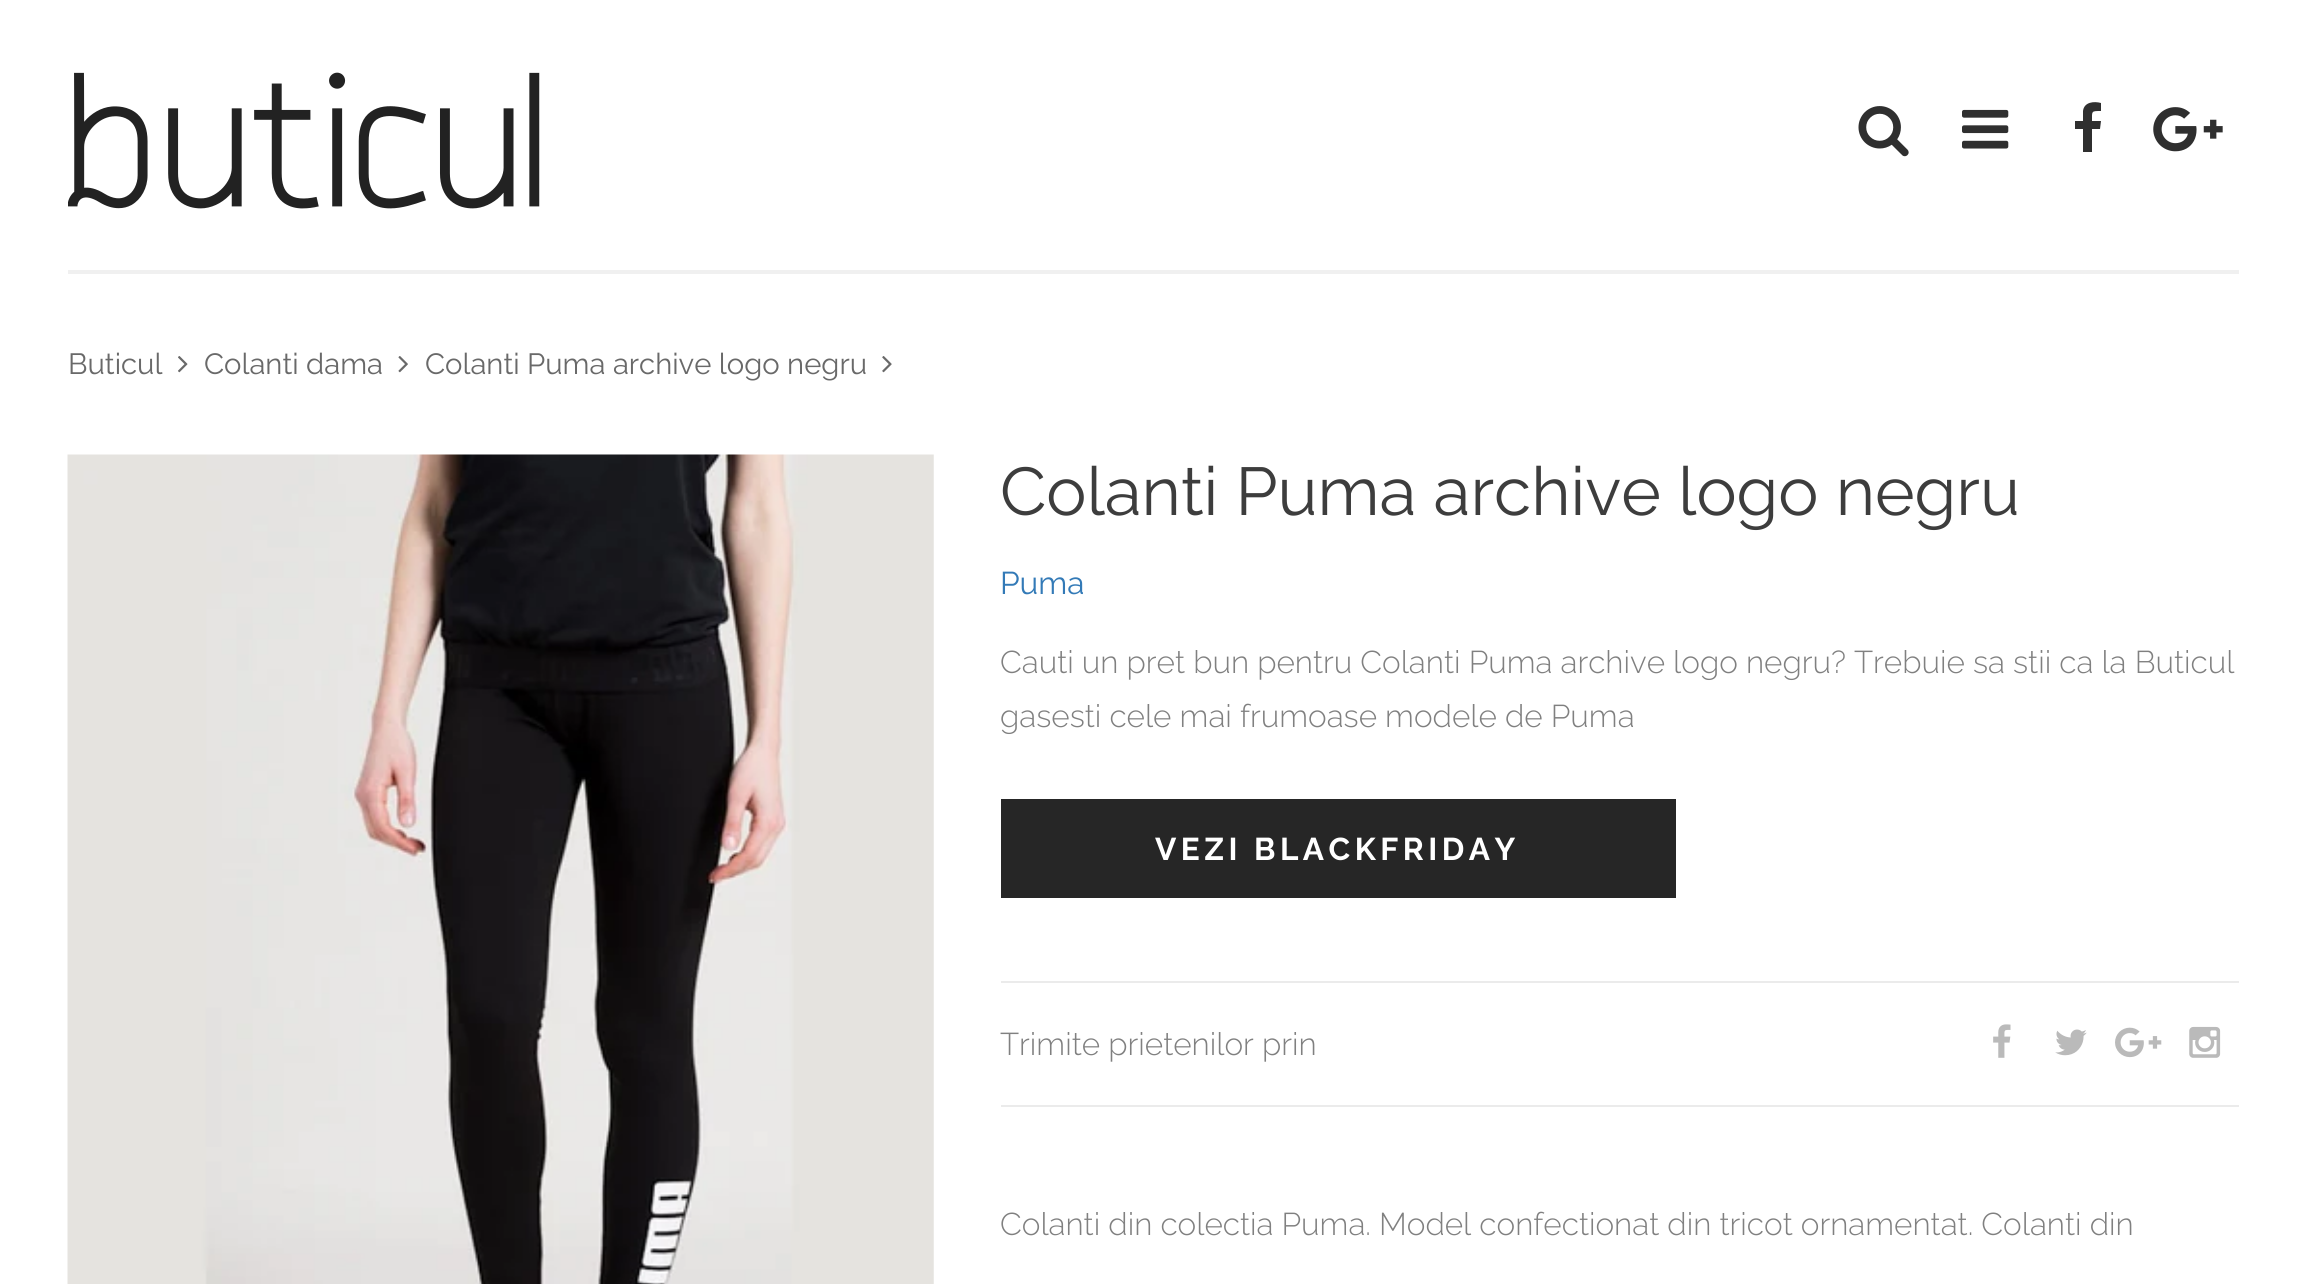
#include <cairo.h>
#include <math.h>
#include <stddef.h>

static cairo_t *c;
static void C(unsigned color){cairo_set_source_rgb(c, (color >> 16) / 255.0, (color >> 8 & 255) / 255.0, (color & 255) / 255.0);}
static void F(const char *family, double size, int italic, int bold){cairo_select_font_face(c, family, italic ? CAIRO_FONT_SLANT_ITALIC : CAIRO_FONT_SLANT_NORMAL,bold ? CAIRO_FONT_WEIGHT_BOLD : CAIRO_FONT_WEIGHT_NORMAL);cairo_set_font_size(c, size);}
static void T(double x, double y, const char *s){cairo_move_to(c, x, y);cairo_show_text(c, s);}
static void L(double x, double y, const char *s, double letter, double word){cairo_move_to(c, x, y);while (*s) {char ch[5] = {0};int n = 0;do ch[n++] = *s++; while ((*s & 0xC0) == 0x80);cairo_show_text(c, ch);cairo_rel_move_to(c, letter + word * (*ch == ' '), 0);}}
static void R(double x, double y, double w, double h){cairo_rectangle(c, x, y, w, h);cairo_fill(c);}
static void I(const char *path, double x, double y, double w, double h){cairo_surface_t *image = cairo_image_surface_create_from_png(path);cairo_save(c);cairo_set_source_surface(c, image, x, y);cairo_rectangle(c, x, y, w, h);cairo_fill(c);cairo_restore(c);cairo_surface_destroy(image);}
int main(void) {
cairo_surface_t *surface = cairo_image_surface_create(CAIRO_FORMAT_RGB24, 2306, 1284);
c = cairo_create(surface);
cairo_font_options_t *options = cairo_font_options_create();
cairo_font_options_set_hint_metrics(options, CAIRO_HINT_METRICS_OFF);
cairo_font_options_set_hint_style(options, CAIRO_HINT_STYLE_NONE);
cairo_set_font_options(c, options);
cairo_set_miter_limit(c, 4);
C(0xffffff);
cairo_paint(c);
C(0xf0f0f0);
R(68,270,2171,4);
I("1.png",68,72,472,137);
I("2.png",1858,106,51,51);
I("3.png",1962,109,47,40);
C(0x2f2f2f);
cairo_new_path(c);
cairo_move_to(c,2101,103);
cairo_line_to(c,2101,111);
cairo_curve_to(c,2091,111,2092,111,2092,121);
cairo_line_to(c,2101,121);
cairo_line_to(c,2100,129);
cairo_line_to(c,2092,129);
cairo_line_to(c,2092,152);
cairo_line_to(c,2083,152);
cairo_line_to(c,2083,129);
cairo_line_to(c,2075,129);
cairo_line_to(c,2075,121);
cairo_line_to(c,2083,121);
cairo_line_to(c,2083,111);
cairo_curve_to(c,2084,102,2094,101,2101,103);
cairo_close_path(c);
cairo_fill(c);
I("4.png",2153,107,70,45);
F("Raleway",29.25,0,0);
C(0x696969);
T(68,374,"Buticul");
I("5.png",178,356,10,17);
T(204,374,"Colanti dama");
I("6.png",398,356,10,17);
T(425,374,"Colanti Puma archive logo negru");
I("7.png",882,356,10,17);
I("8.png",67,454,867,830);
F("Raleway",67.5,0,0);
C(0x3d3d3d);
T(1000,515,"Colanti Puma archive logo negru");
F("Raleway",31.5,0,0);
C(0x337ab7);
T(1000,594,"Puma");
F("Raleway Light",31.5,0,0);
C(0x808080);
T(1000,673,"Cauti un pret bun pentru Colanti Puma archive logo negru? Trebuie sa stii ca la Buticul");
T(1000,727,"gasesti cele mai frumoase modele de Puma");
C(0x262626);
R(1001,799,675,99);
F("Raleway",31.5,0,1);
C(0xffffff);
L(1155,860,"VEZI BLACKFRIDAY",4.5,0);
C(0xebebeb);
R(1001,981,1238,2);
R(1001,1105,1238,2);
F("Raleway Light",31.5,0,0);
C(0x808080);
T(1000,1055,"Trimite prietenilor prin");
I("9.png",1993,1024,18,34);
I("10.png",2055,1029,32,27);
I("11.png",2115,1027,47,31);
I("12.png",2189,1026,32,32);
T(1000,1235,"Colanti din colectia Puma. Model confectionat din tricot ornamentat. Colanti din");
cairo_surface_write_to_png(surface, "o.png");
cairo_font_options_destroy(options);
cairo_destroy(c);
cairo_surface_destroy(surface);
return 0;
}
